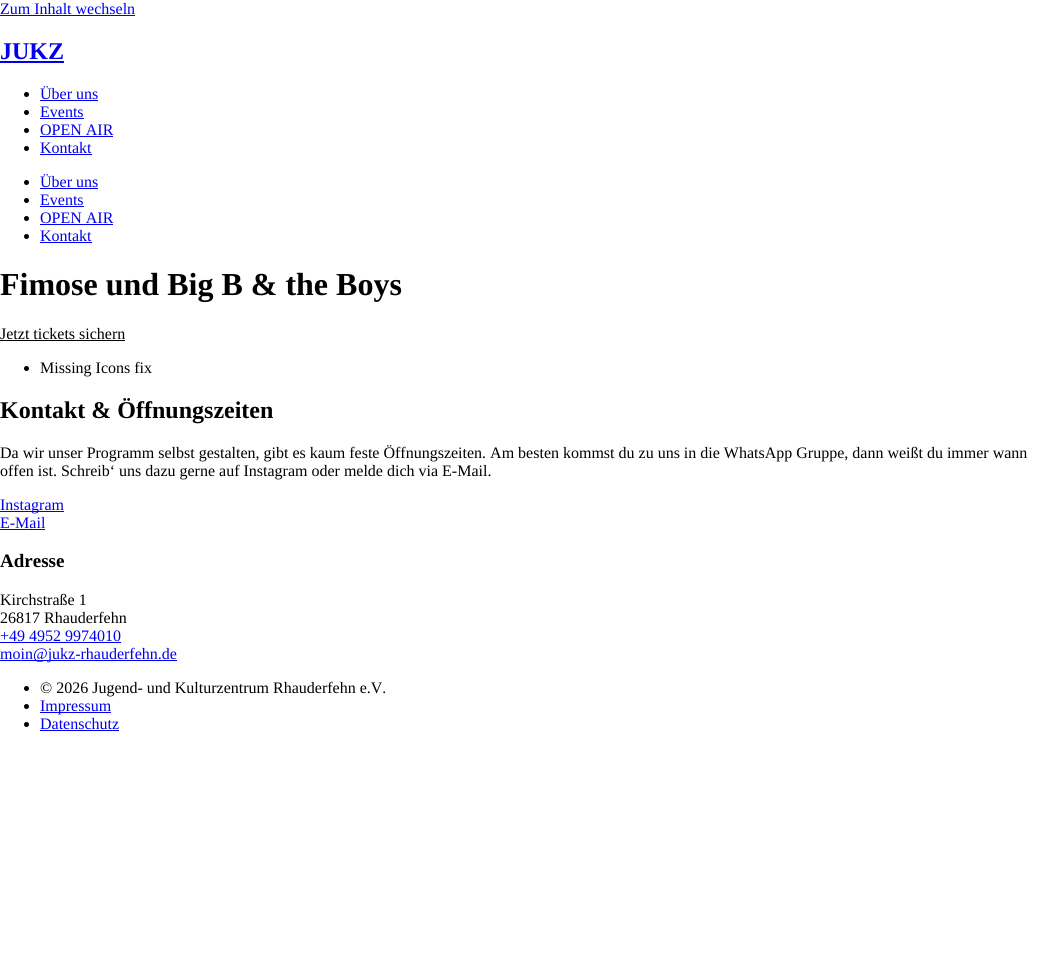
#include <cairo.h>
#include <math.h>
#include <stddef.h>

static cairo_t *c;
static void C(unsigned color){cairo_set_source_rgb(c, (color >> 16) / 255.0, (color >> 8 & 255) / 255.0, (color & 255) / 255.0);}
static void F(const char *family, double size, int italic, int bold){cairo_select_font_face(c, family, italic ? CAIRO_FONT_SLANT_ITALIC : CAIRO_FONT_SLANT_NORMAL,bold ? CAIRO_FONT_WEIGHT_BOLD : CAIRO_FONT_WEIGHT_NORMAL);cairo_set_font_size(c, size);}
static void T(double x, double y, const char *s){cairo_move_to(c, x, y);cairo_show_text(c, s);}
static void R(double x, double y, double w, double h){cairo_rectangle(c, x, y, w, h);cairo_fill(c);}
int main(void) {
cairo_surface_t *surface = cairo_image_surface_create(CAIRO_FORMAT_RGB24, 1049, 976);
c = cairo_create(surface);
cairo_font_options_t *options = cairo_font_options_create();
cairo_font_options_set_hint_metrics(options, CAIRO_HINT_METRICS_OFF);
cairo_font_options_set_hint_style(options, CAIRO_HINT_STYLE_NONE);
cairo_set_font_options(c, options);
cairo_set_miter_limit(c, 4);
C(0xffffff);
cairo_paint(c);
F("Liberation Serif",16,0,0);
C(0x0000ee);
T(0,14,"Zum Inhalt wechseln");
R(0,15,135,1);
F("Liberation Serif",24,0,1);
T(0,59,"JUKZ");
R(0,61,64,2);
C(0x000000);
cairo_new_path(c);
cairo_arc(c,26.5,94.5,2.5,0,2 * M_PI);
cairo_fill(c);
F("Liberation Serif",16,0,0);
C(0x0000ee);
T(40,99,"Über uns");
R(40,100,58,1);
C(0x000000);
cairo_new_path(c);
cairo_arc(c,26.5,112.5,2.5,0,2 * M_PI);
cairo_fill(c);
C(0x0000ee);
T(40,117,"Events");
R(40,118,44,1);
C(0x000000);
cairo_new_path(c);
cairo_arc(c,26.5,130.5,2.5,0,2 * M_PI);
cairo_fill(c);
C(0x0000ee);
T(40,135,"OPEN AIR");
R(40,136,73,1);
C(0x000000);
cairo_new_path(c);
cairo_arc(c,26.5,148.5,2.5,0,2 * M_PI);
cairo_fill(c);
C(0x0000ee);
T(40,153,"Kontakt");
R(40,154,52,1);
C(0x000000);
cairo_new_path(c);
cairo_arc(c,26.5,182.5,2.5,0,2 * M_PI);
cairo_fill(c);
C(0x0000ee);
T(40,187,"Über uns");
R(40,188,58,1);
C(0x000000);
cairo_new_path(c);
cairo_arc(c,26.5,200.5,2.5,0,2 * M_PI);
cairo_fill(c);
C(0x0000ee);
T(40,205,"Events");
R(40,206,44,1);
C(0x000000);
cairo_new_path(c);
cairo_arc(c,26.5,218.5,2.5,0,2 * M_PI);
cairo_fill(c);
C(0x0000ee);
T(40,223,"OPEN AIR");
R(40,224,73,1);
C(0x000000);
cairo_new_path(c);
cairo_arc(c,26.5,236.5,2.5,0,2 * M_PI);
cairo_fill(c);
C(0x0000ee);
T(40,241,"Kontakt");
R(40,242,52,1);
F("Liberation Serif",32,0,1);
C(0x000000);
T(0,295,"Fimose und Big B & the Boys");
F("Liberation Serif",16,0,0);
T(0,339,"Jetzt tickets sichern");
R(0,340,125,1);
cairo_new_path(c);
cairo_arc(c,26.5,368.5,2.5,0,2 * M_PI);
cairo_fill(c);
T(40,373,"Missing Icons fix");
F("Liberation Serif",24,0,1);
T(0,418,"Kontakt & Öffnungszeiten");
F("Liberation Serif",16,0,0);
T(0,458,"Da wir unser Programm selbst gestalten, gibt es kaum feste Öffnungszeiten. Am besten kommst du zu uns in die WhatsApp Gruppe, dann weißt du immer wann");
T(0,476,"offen ist. Schreib‘ uns dazu gerne auf Instagram oder melde dich via E-Mail.");
C(0x0000ee);
R(0,511,64,1);
T(0,510,"Instagram");
T(0,528,"E-Mail");
R(0,529,45,1);
F("Liberation Serif",19,0,1);
C(0x000000);
T(0,567,"Adresse");
F("Liberation Serif",16,0,0);
T(0,605,"Kirchstraße 1");
T(0,623,"26817 Rhauderfehn");
C(0x0000ee);
T(0,641,"+49 4952 9974010");
R(0,642,121,1);
R(0,660,177,1);
T(0,659,"moin@jukz-rhauderfehn.de");
C(0x000000);
cairo_new_path(c);
cairo_arc(c,26.5,688.5,2.5,0,2 * M_PI);
cairo_fill(c);
T(40,693,"© 2026 Jugend- und Kulturzentrum Rhauderfehn e.V.");
cairo_new_path(c);
cairo_arc(c,26.5,706.5,2.5,0,2 * M_PI);
cairo_fill(c);
C(0x0000ee);
R(40,712,71,1);
T(40,711,"Impressum");
C(0x000000);
cairo_new_path(c);
cairo_arc(c,26.5,724.5,2.5,0,2 * M_PI);
cairo_fill(c);
C(0x0000ee);
T(40,729,"Datenschutz");
R(40,730,79,1);
cairo_surface_write_to_png(surface, "o.png");
cairo_font_options_destroy(options);
cairo_destroy(c);
cairo_surface_destroy(surface);
return 0;
}
